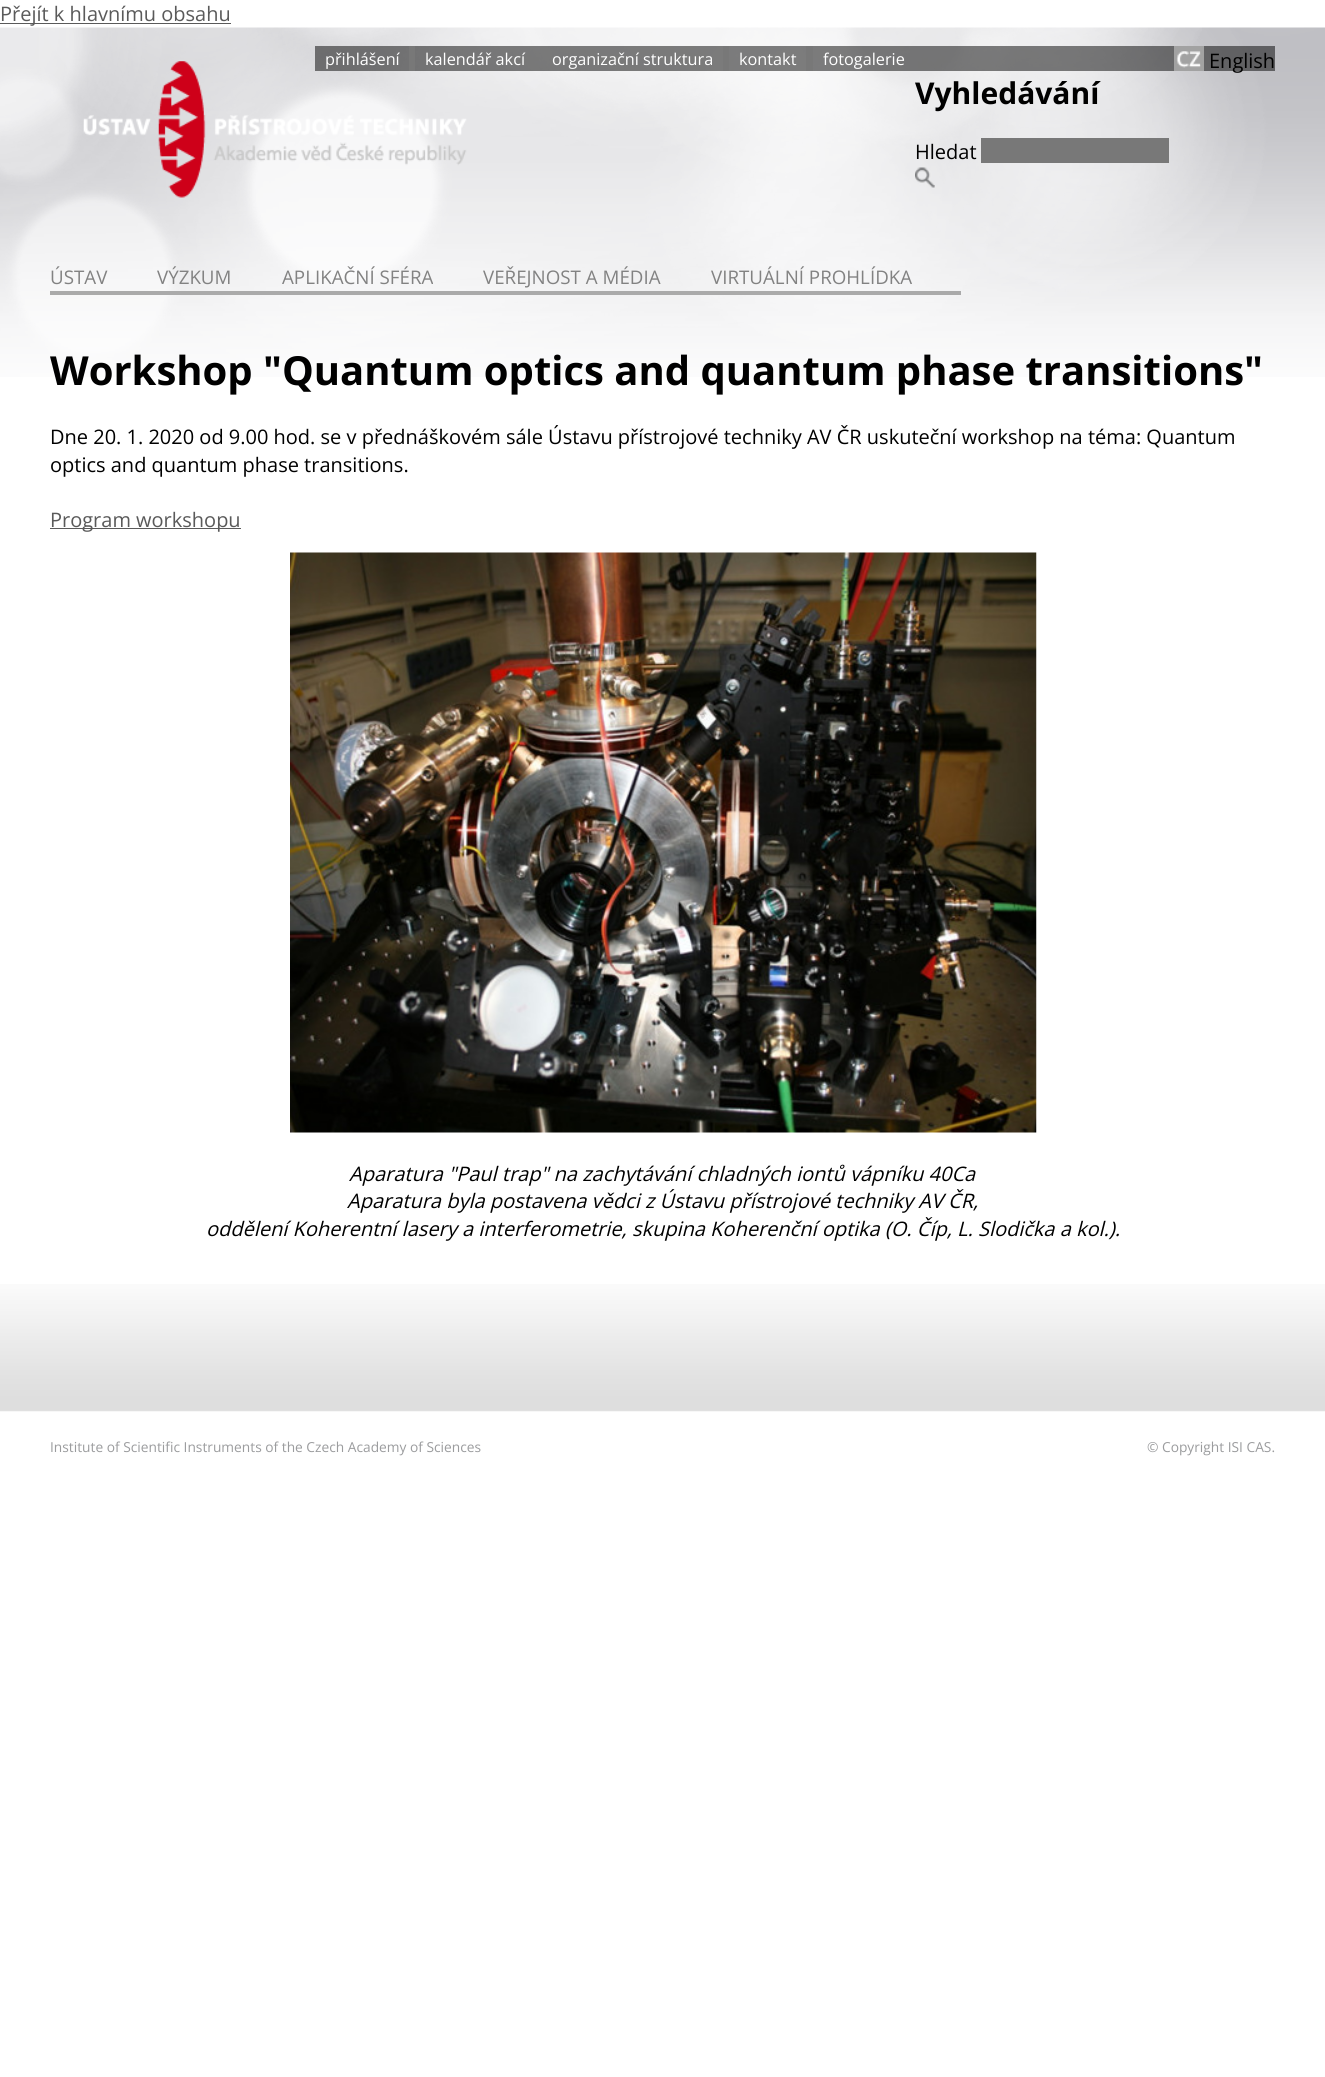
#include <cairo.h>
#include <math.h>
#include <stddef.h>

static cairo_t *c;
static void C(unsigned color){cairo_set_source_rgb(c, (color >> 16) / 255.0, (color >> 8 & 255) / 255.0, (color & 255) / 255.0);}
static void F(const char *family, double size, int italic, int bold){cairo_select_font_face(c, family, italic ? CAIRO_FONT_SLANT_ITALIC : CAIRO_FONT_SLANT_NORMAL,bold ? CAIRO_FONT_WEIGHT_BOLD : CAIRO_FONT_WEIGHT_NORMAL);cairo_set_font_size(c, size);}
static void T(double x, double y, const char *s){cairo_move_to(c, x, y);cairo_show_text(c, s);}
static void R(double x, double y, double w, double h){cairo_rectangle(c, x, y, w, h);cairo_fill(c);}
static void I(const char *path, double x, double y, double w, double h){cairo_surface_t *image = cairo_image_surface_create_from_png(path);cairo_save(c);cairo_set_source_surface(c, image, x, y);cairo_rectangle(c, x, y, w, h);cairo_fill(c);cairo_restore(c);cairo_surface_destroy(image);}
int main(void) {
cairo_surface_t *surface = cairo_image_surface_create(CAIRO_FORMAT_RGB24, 1325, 2077);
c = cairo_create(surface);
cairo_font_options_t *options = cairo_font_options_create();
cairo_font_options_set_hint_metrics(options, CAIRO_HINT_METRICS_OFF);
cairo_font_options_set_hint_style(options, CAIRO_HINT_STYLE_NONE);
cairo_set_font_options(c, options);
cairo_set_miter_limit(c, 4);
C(0xffffff);
cairo_paint(c);
C(0x5a5a5a);
R(0,23,231,1);
F("Open Sans",20,0,0);
T(0,21,"Přejít k hlavnímu obsahu");
I("1.png",0,27,1325,350);
cairo_set_source_rgba(c,0,0,0,0.5);
R(315,46,960,25);
C(0x787878);
R(409,46,6,25);
F("Open Sans",16.25,0,0);
C(0xffffff);
T(325,65,"přihlášení");
T(425,65,"kalendář akcí");
I("2.png",83,61,384,137);
C(0x787878);
R(723,46,6,25);
C(0xffffff);
T(552,65,"organizační struktura");
C(0x787878);
R(806,46,7,25);
C(0xffffff);
T(739,65,"kontakt");
T(823,65,"fotogalerie");
C(0xa2a2a2);
R(1174,46,30,25);
I("3.png",1176,51,25,17);
F("Open Sans",20,0,0);
C(0x000000);
T(1209,68,"English");
F("Open Sans",30,0,1);
T(915,104,"Vyhledávání");
F("Open Sans",20,0,0);
T(915,159,"Hledat");
C(0x787878);
R(981,138,188,25);
I("4.png",915,167,20,21);
F("Open Sans",18.75,0,0);
C(0x828282);
T(50,284,"ÚSTAV");
C(0xaaaaaa);
R(50,291,911,4);
C(0x828282);
T(157,284,"VÝZKUM");
T(282,284,"APLIKAČNÍ SFÉRA");
T(483,284,"VEŘEJNOST A MÉDIA");
T(711,284,"VIRTUÁLNÍ PROHLÍDKA");
F("Open Sans",40,0,1);
C(0x000000);
T(50,385,"Workshop \"Quantum optics and quantum phase transitions\"");
F("Open Sans",20,0,0);
T(50,444,"Dne 20. 1. 2020 od 9.00 hod. se v přednáškovém sále Ústavu přístrojové techniky AV ČR uskuteční workshop na téma: Quantum");
T(50,472,"optics and quantum phase transitions.");
C(0x5a5a5a);
R(50,528,191,1);
T(50,527,"Program workshopu");
I("5.png",290,552,747,581);
F("Open Sans",20,1,0);
C(0x000000);
T(349,1181,"Aparatura \"Paul trap\" na zachytávání chladných iontů vápníku 40Ca");
T(347,1208,"Aparatura byla postavena vědci z Ústavu přístrojové techniky AV ČR,");
T(206,1236,"oddělení Koherentní lasery a interferometrie, skupina Koherenční optika (O. Číp, L. Slodička a kol.).");
I("6.png",0,1284,1325,128);
F("Open Sans",13.75,0,0);
C(0x9b9c9e);
T(50,1452,"Institute of Scientific Instruments of the Czech Academy of Sciences");
T(1147,1452,"© Copyright ISI CAS.");
cairo_surface_write_to_png(surface, "o.png");
cairo_font_options_destroy(options);
cairo_destroy(c);
cairo_surface_destroy(surface);
return 0;
}
